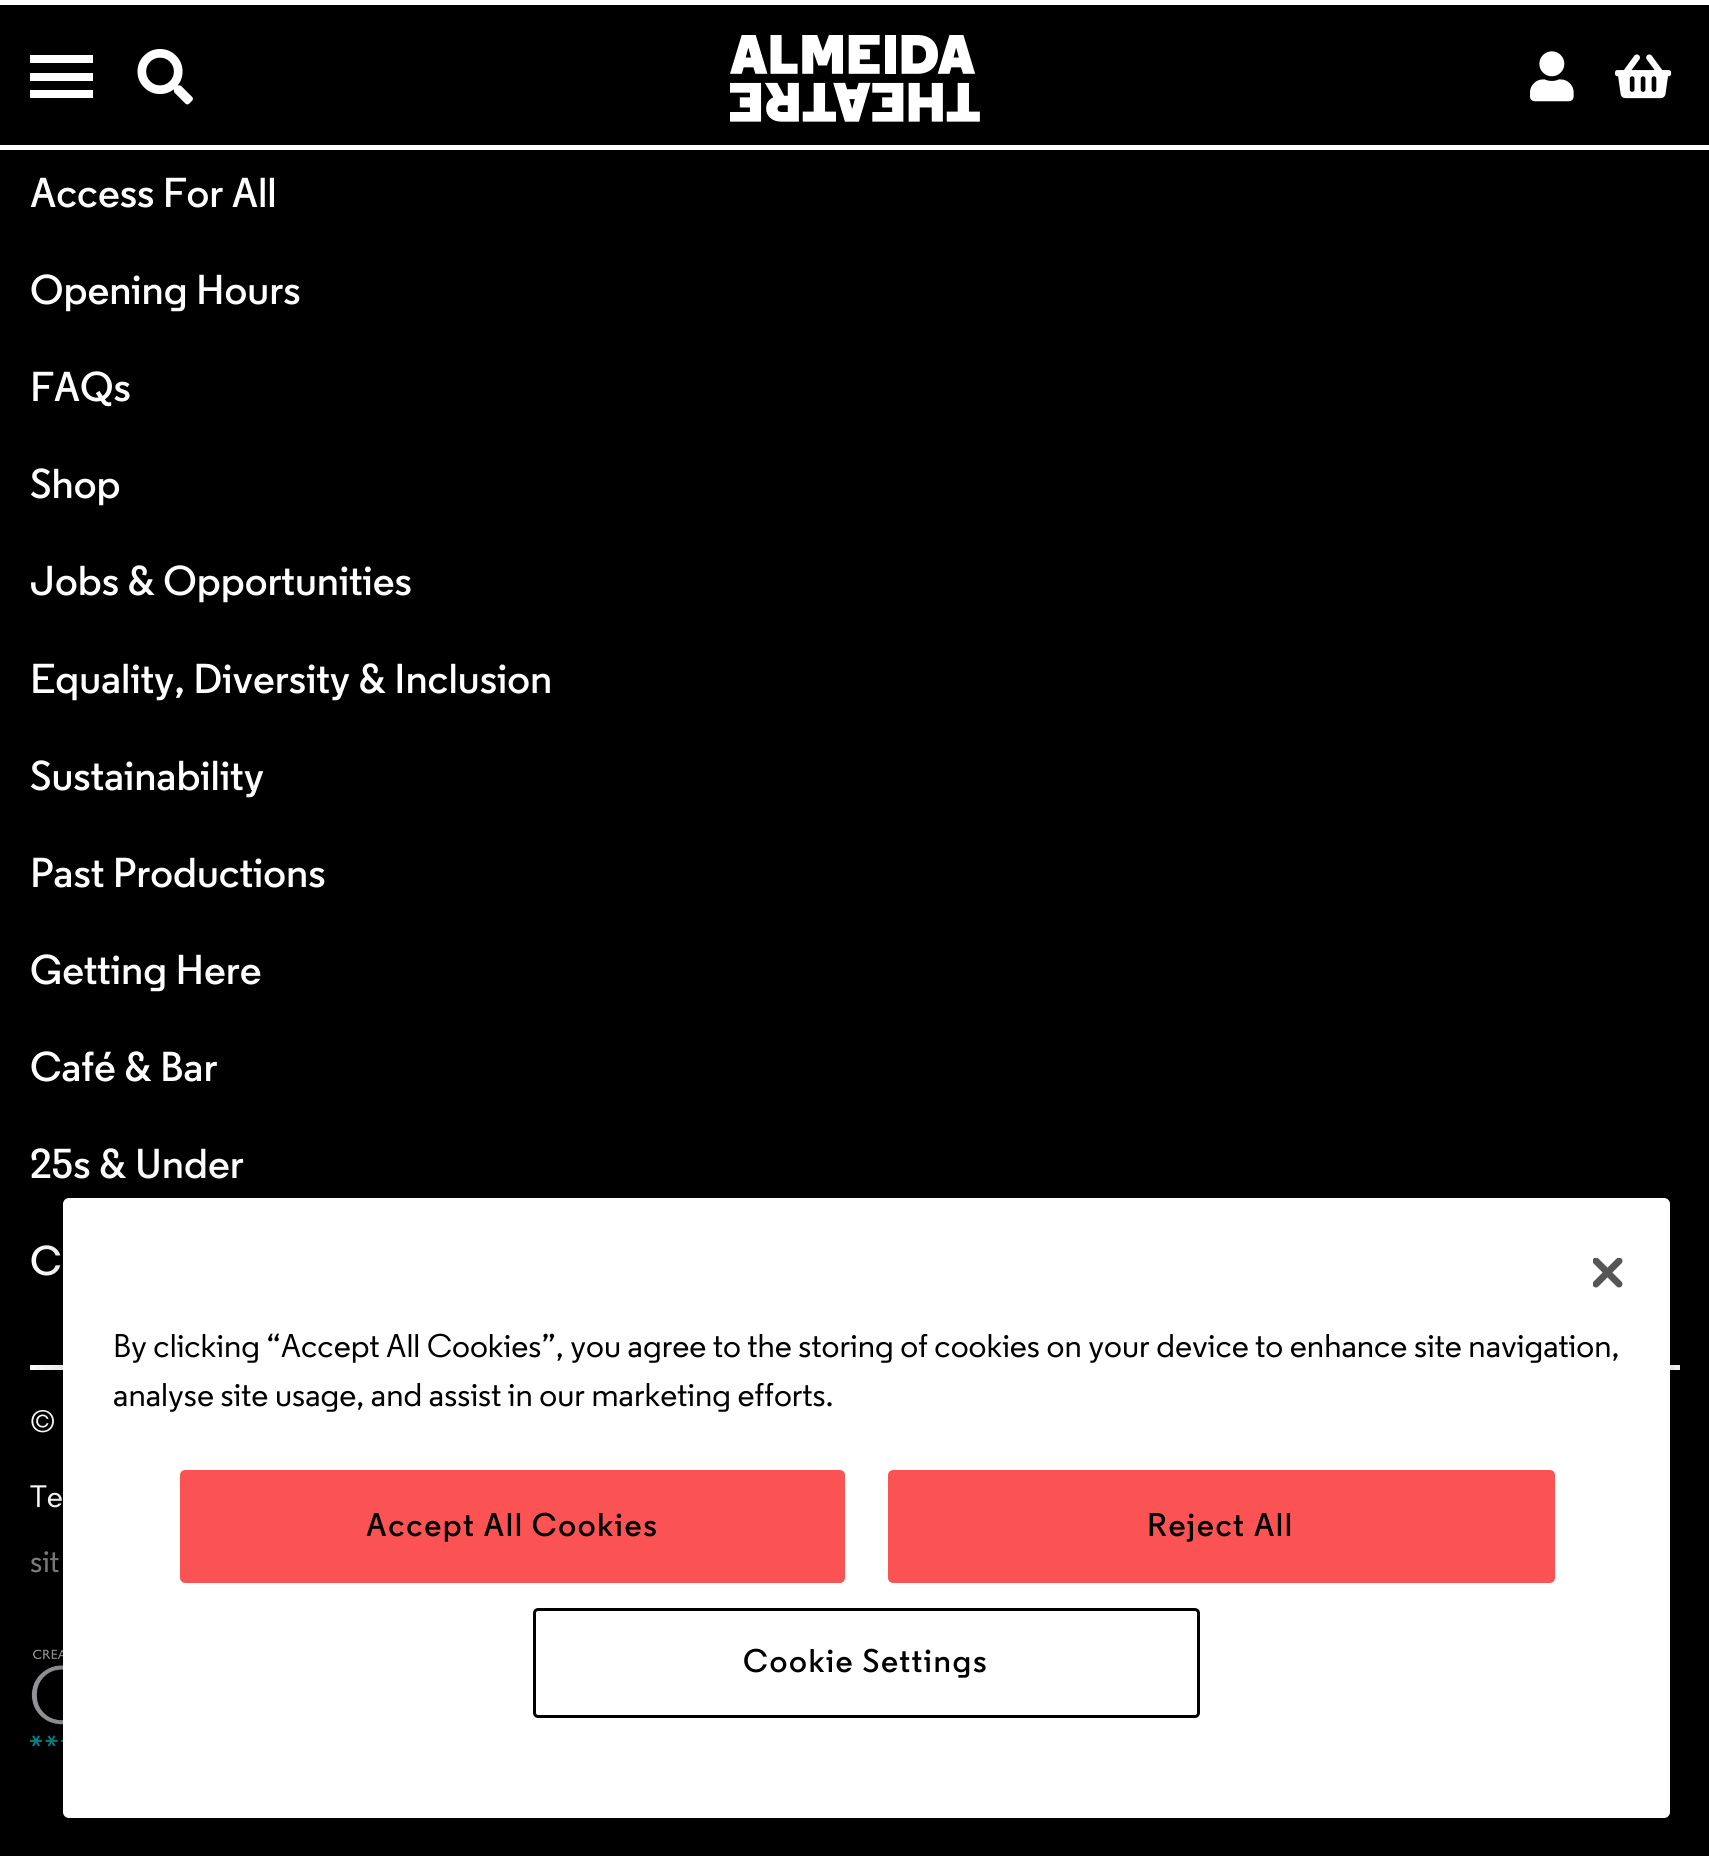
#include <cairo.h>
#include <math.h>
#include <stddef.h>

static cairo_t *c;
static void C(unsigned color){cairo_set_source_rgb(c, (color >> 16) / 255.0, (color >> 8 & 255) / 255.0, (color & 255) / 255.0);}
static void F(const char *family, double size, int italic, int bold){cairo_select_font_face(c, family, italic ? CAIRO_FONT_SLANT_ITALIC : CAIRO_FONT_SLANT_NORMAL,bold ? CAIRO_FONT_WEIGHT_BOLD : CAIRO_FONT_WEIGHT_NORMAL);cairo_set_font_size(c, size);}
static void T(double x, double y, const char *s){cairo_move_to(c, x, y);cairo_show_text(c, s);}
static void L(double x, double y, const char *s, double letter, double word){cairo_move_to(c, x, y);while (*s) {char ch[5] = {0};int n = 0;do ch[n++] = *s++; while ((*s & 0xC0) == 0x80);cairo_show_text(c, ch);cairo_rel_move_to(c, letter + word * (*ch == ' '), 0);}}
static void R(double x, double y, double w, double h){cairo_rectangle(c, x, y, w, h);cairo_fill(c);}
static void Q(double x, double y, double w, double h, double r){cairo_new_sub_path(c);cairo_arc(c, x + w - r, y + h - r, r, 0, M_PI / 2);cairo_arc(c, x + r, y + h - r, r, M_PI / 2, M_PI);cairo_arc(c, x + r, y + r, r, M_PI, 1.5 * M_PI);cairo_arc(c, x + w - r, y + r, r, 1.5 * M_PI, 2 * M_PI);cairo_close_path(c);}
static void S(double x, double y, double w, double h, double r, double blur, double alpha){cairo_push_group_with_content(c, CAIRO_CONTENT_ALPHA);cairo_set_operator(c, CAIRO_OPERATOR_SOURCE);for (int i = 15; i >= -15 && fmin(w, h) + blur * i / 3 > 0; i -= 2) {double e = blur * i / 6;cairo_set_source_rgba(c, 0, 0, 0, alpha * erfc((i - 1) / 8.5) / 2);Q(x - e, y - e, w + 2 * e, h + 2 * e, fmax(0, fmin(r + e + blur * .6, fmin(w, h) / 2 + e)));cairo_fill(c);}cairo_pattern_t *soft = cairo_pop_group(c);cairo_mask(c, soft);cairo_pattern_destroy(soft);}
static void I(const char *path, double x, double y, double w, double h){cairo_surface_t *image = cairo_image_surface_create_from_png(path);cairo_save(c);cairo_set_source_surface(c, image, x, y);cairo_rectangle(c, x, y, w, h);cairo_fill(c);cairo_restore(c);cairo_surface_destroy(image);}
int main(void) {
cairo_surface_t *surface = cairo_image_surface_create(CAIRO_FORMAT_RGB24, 1709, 1856);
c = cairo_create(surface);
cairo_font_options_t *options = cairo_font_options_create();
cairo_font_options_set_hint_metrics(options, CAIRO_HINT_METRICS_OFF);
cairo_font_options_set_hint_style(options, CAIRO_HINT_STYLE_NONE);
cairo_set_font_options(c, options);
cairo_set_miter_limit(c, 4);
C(0x000000);
cairo_paint(c);
C(0xffffff);
R(0,0,1709,5);
R(0,145,1709,5);
R(30,73,63,8);
R(30,55,63,8);
R(30,90,63,8);
I("1.png",137,49,56,56);
I("2.png",730,35,250,87);
I("3.png",1530,51,44,51);
I("4.png",1615,54,57,45);
R(30,1365,1650,5);
F("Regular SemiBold",41.75,0,0);
T(30,207,"Access For All");
T(30,304,"Opening Hours");
T(30,401,"FAQs");
T(30,498,"Shop");
T(30,595,"Jobs & Opportunities");
T(30,693,"Equality, Diversity & Inclusion");
T(30,790,"Sustainability");
T(30,887,"Past Productions");
T(30,984,"Getting Here");
T(30,1081,"Café & Bar");
T(30,1178,"25s & Under");
T(30,1275,"C");
F("Regular Medium",31,0,0);
T(30,1432,"©");
T(30,1507,"Te");
C(0x808080);
T(30,1572,"sit");
I("5.png",30,1649,33,98);
C(0x000000);
S(63,1198,1607,620,6,22.5,.2);
C(0xffffff);
Q(63,1198,1607,620,6);
cairo_fill(c);
I("6.png",1593,1258,30,30);
F("Regular Medium",32.8,0,0);
C(0x000000);
T(113,1357,"By clicking “Accept All Cookies”, you agree to the storing of cookies on your device to enhance site navigation,");
T(113,1406,"analyse site usage, and assist in our marketing efforts.");
C(0xfb5354);
Q(181.5,1471.5,662,110,3.5);
cairo_fill_preserve(c);
cairo_set_line_width(c,3);
cairo_stroke(c);
F("Regular SemiBold",32.8,0,0);
C(0x000000);
L(366,1536,"Accept All Cookies",1.6,0);
C(0xfb5354);
Q(889.5,1471.5,664,110,3.5);
cairo_fill_preserve(c);
cairo_stroke(c);
C(0x000000);
L(1147,1536,"Reject All",1.6,0);
Q(534.5,1609.5,664,107,3.5);
cairo_stroke(c);
L(743,1672,"Cookie Settings",1.6,0);
cairo_surface_write_to_png(surface, "o.png");
cairo_font_options_destroy(options);
cairo_destroy(c);
cairo_surface_destroy(surface);
return 0;
}
